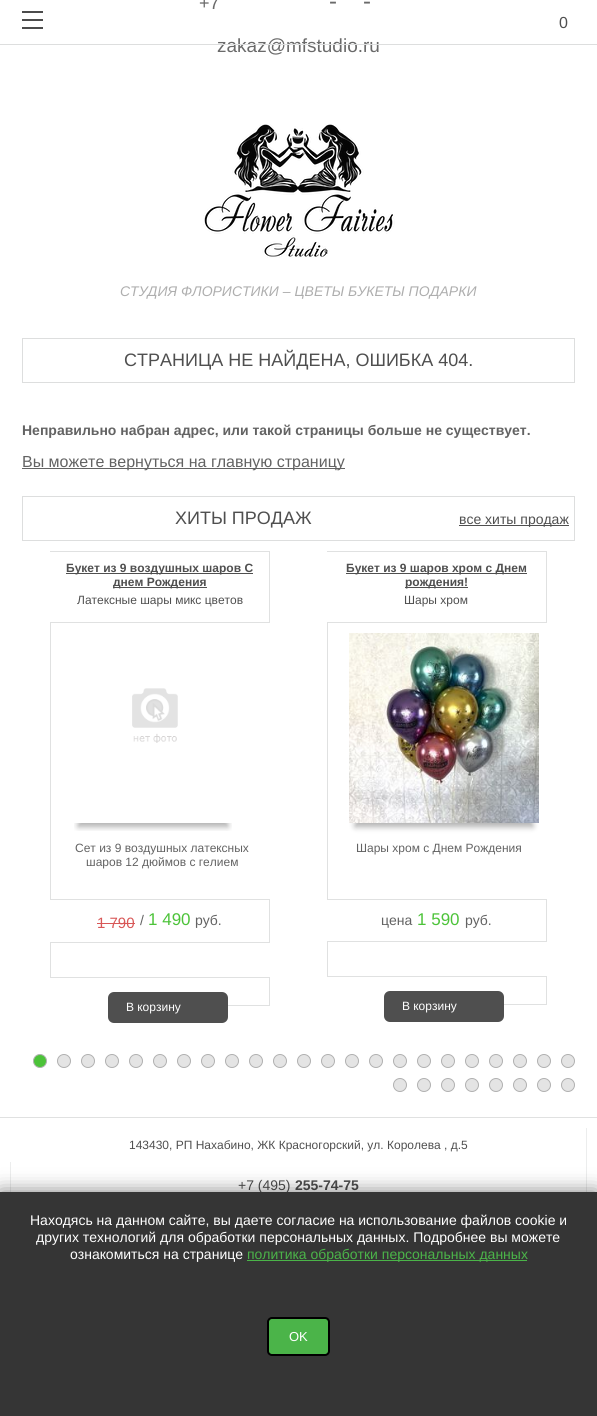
#include <cairo.h>
#include <math.h>
#include <stddef.h>

static cairo_t *c;
static void C(unsigned color){cairo_set_source_rgb(c, (color >> 16) / 255.0, (color >> 8 & 255) / 255.0, (color & 255) / 255.0);}
static void F(const char *family, double size, int italic, int bold){cairo_select_font_face(c, family, italic ? CAIRO_FONT_SLANT_ITALIC : CAIRO_FONT_SLANT_NORMAL,bold ? CAIRO_FONT_WEIGHT_BOLD : CAIRO_FONT_WEIGHT_NORMAL);cairo_set_font_size(c, size);}
static void T(double x, double y, const char *s){cairo_move_to(c, x, y);cairo_show_text(c, s);}
static void R(double x, double y, double w, double h){cairo_rectangle(c, x, y, w, h);cairo_fill(c);}
static void Q(double x, double y, double w, double h, double r){cairo_new_sub_path(c);cairo_arc(c, x + w - r, y + h - r, r, 0, M_PI / 2);cairo_arc(c, x + r, y + h - r, r, M_PI / 2, M_PI);cairo_arc(c, x + r, y + r, r, M_PI, 1.5 * M_PI);cairo_arc(c, x + w - r, y + r, r, 1.5 * M_PI, 2 * M_PI);cairo_close_path(c);}
static void S(double x, double y, double w, double h, double r, double blur, double alpha){cairo_push_group_with_content(c, CAIRO_CONTENT_ALPHA);cairo_set_operator(c, CAIRO_OPERATOR_SOURCE);for (int i = 15; i >= -15 && fmin(w, h) + blur * i / 3 > 0; i -= 2) {double e = blur * i / 6;cairo_set_source_rgba(c, 0, 0, 0, alpha * erfc((i - 1) / 8.5) / 2);Q(x - e, y - e, w + 2 * e, h + 2 * e, fmax(0, fmin(r + e + blur * .6, fmin(w, h) / 2 + e)));cairo_fill(c);}cairo_pattern_t *soft = cairo_pop_group(c);cairo_mask(c, soft);cairo_pattern_destroy(soft);}
static void I(const char *path, double x, double y, double w, double h){cairo_surface_t *image = cairo_image_surface_create_from_png(path);cairo_save(c);cairo_set_source_surface(c, image, x, y);cairo_rectangle(c, x, y, w, h);cairo_fill(c);cairo_restore(c);cairo_surface_destroy(image);}
int main(void) {
cairo_surface_t *surface = cairo_image_surface_create(CAIRO_FORMAT_RGB24, 597, 1416);
c = cairo_create(surface);
cairo_font_options_t *options = cairo_font_options_create();
cairo_font_options_set_hint_metrics(options, CAIRO_HINT_METRICS_OFF);
cairo_font_options_set_hint_style(options, CAIRO_HINT_STYLE_NONE);
cairo_set_font_options(c, options);
cairo_set_miter_limit(c, 4);
C(0xffffff);
cairo_paint(c);
F("Liberation Sans",18,0,0);
C(0x6a6a6a);
T(199,9,"+7");
F("Liberation Sans",24,0,0);
T(329,9,"-");
T(363,9,"-");
F("Liberation Sans",19,0,0);
T(217,52,"zakaz@mfstudio.ru");
I("1.png",203,124,192,134);
F("Liberation Sans",14,1,0);
C(0xaeaeae);
T(120,296,"СТУДИЯ ФЛОРИСТИКИ – ЦВЕТЫ БУКЕТЫ ПОДАРКИ");
C(0xdddede);
R(0,44,597,1);
C(0x4c4c4c);
R(22,19,21,2);
R(22,11,21,2);
R(22,27,21,2);
F("Liberation Sans",16,0,0);
C(0x4f4f4f);
T(559,28,"0");
cairo_rectangle(c,22.5,338.5,552,44);
C(0xdddede);
cairo_set_line_width(c,1);
cairo_stroke(c);
F("Liberation Sans",18,0,0);
C(0x4f4f4f);
T(124,366,"СТРАНИЦА НЕ НАЙДЕНА, ОШИБКА 404.");
F("Liberation Sans",14,0,1);
C(0x636363);
T(22,435,"Неправильно набран адрес, или такой страницы больше не существует.");
R(22,468,323,1);
F("Liberation Sans",16,0,0);
T(22,467,"Вы можете вернуться на главную страницу");
cairo_rectangle(c,22.5,496.5,552,44);
C(0xdddede);
cairo_stroke(c);
F("Liberation Sans",18,0,0);
C(0x4f4f4f);
T(175,524,"ХИТЫ ПРОДАЖ");
R(459,525,110,1);
F("Liberation Sans",14,0,0);
T(459,524,"все хиты продаж");
C(0xe0e1e1);
R(50,551,220,1);
R(269,551,1,72);
R(50,622,220,1);
C(0x4f4f4f);
R(66,573,187,1);
F("Liberation Sans",12,0,1);
T(66,572,"Букет из 9 воздушных шаров С");
R(113,587,94,1);
T(113,586,"днем Рождения");
F("Liberation Sans",12,0,0);
T(77,604,"Латексные шары микс цветов");
C(0xe0e1e1);
R(50,899,220,1);
R(50,623,1,277);
cairo_save(c);
cairo_rectangle(c,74,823,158,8);
cairo_clip(c);
C(0x000000);
S(78,649,150,178,0,3,.3);
cairo_restore(c);
I("2.png",132,688,46,55);
C(0x636363);
T(75,852,"Сет из 9 воздушных латексных");
T(86,866,"шаров 12 дюймов с гелием");
C(0xe0e1e1);
R(269,900,1,42);
F("Liberation Sans",15,0,0);
C(0xd85757);
T(97,928,"1 790");
R(97,923,38,1);
F("Liberation Sans",14,0,0);
C(0x636363);
T(140,925,"/");
F("Liberation Sans",17,0,0);
C(0x4cc339);
T(148,925,"1 490");
F("Liberation Sans",14,0,0);
C(0x636363);
T(195,925,"руб.");
C(0xe0e1e1);
R(50,942,220,1);
R(50,942,1,35);
R(50,977,220,1);
R(269,977,1,29);
C(0x4f4f4f);
Q(108,992,120,31,6);
cairo_fill(c);
F("Liberation Sans",12,0,0);
C(0xffffff);
T(126,1011,"В корзину");
C(0xe0e1e1);
R(228,1005,41,1);
R(327,551,220,1);
R(546,551,1,72);
R(327,622,220,1);
C(0x4f4f4f);
R(346,573,181,1);
F("Liberation Sans",12,0,1);
T(346,572,"Букет из 9 шаров хром с Днем");
R(405,587,63,1);
T(405,586,"рождения!");
F("Liberation Sans",12,0,0);
T(404,604,"Шары хром");
C(0xe0e1e1);
R(327,899,220,1);
R(327,623,1,277);
C(0x000000);
S(355,649,178,178,0,3,.3);
I("3.png",349,633,190,190);
C(0x636363);
T(356,852,"Шары хром с Днем Рождения");
C(0xe0e1e1);
R(546,900,1,41);
F("Liberation Sans",14,0,0);
C(0x636363);
T(381,925,"цена");
F("Liberation Sans",17,0,0);
C(0x4cc339);
T(417,925,"1 590");
F("Liberation Sans",14,0,0);
C(0x636363);
T(465,925,"руб.");
C(0xe0e1e1);
R(327,941,220,1);
R(327,941,1,35);
R(327,976,220,1);
R(546,976,1,29);
C(0x4f4f4f);
Q(384,991,120,31,6);
cairo_fill(c);
F("Liberation Sans",12,0,0);
C(0xffffff);
T(402,1010,"В корзину");
C(0xe0e1e1);
R(504,1004,42,1);
C(0x4cc339);
cairo_new_path(c);
cairo_arc(c,40,1061,6.5,0,2 * M_PI);
cairo_fill_preserve(c);
C(0xb1b1b1);
cairo_stroke(c);
C(0xe4e4e4);
cairo_arc(c,64,1061,6.5,0,2 * M_PI);
cairo_fill_preserve(c);
C(0xb1b1b1);
cairo_stroke(c);
C(0xe4e4e4);
cairo_arc(c,88,1061,6.5,0,2 * M_PI);
cairo_fill_preserve(c);
C(0xb1b1b1);
cairo_stroke(c);
C(0xe4e4e4);
cairo_arc(c,112,1061,6.5,0,2 * M_PI);
cairo_fill_preserve(c);
C(0xb1b1b1);
cairo_stroke(c);
C(0xe4e4e4);
cairo_arc(c,136,1061,6.5,0,2 * M_PI);
cairo_fill_preserve(c);
C(0xb1b1b1);
cairo_stroke(c);
C(0xe4e4e4);
cairo_arc(c,160,1061,6.5,0,2 * M_PI);
cairo_fill_preserve(c);
C(0xb1b1b1);
cairo_stroke(c);
C(0xe4e4e4);
cairo_arc(c,184,1061,6.5,0,2 * M_PI);
cairo_fill_preserve(c);
C(0xb1b1b1);
cairo_stroke(c);
C(0xe4e4e4);
cairo_arc(c,208,1061,6.5,0,2 * M_PI);
cairo_fill_preserve(c);
C(0xb1b1b1);
cairo_stroke(c);
C(0xe4e4e4);
cairo_arc(c,232,1061,6.5,0,2 * M_PI);
cairo_fill_preserve(c);
C(0xb1b1b1);
cairo_stroke(c);
C(0xe4e4e4);
cairo_arc(c,256,1061,6.5,0,2 * M_PI);
cairo_fill_preserve(c);
C(0xb1b1b1);
cairo_stroke(c);
C(0xe4e4e4);
cairo_arc(c,280,1061,6.5,0,2 * M_PI);
cairo_fill_preserve(c);
C(0xb1b1b1);
cairo_stroke(c);
C(0xe4e4e4);
cairo_arc(c,304,1061,6.5,0,2 * M_PI);
cairo_fill_preserve(c);
C(0xb1b1b1);
cairo_stroke(c);
C(0xe4e4e4);
cairo_arc(c,328,1061,6.5,0,2 * M_PI);
cairo_fill_preserve(c);
C(0xb1b1b1);
cairo_stroke(c);
C(0xe4e4e4);
cairo_arc(c,352,1061,6.5,0,2 * M_PI);
cairo_fill_preserve(c);
C(0xb1b1b1);
cairo_stroke(c);
C(0xe4e4e4);
cairo_arc(c,376,1061,6.5,0,2 * M_PI);
cairo_fill_preserve(c);
C(0xb1b1b1);
cairo_stroke(c);
C(0xe4e4e4);
cairo_arc(c,400,1061,6.5,0,2 * M_PI);
cairo_fill_preserve(c);
C(0xb1b1b1);
cairo_stroke(c);
C(0xe4e4e4);
cairo_arc(c,424,1061,6.5,0,2 * M_PI);
cairo_fill_preserve(c);
C(0xb1b1b1);
cairo_stroke(c);
C(0xe4e4e4);
cairo_arc(c,448,1061,6.5,0,2 * M_PI);
cairo_fill_preserve(c);
C(0xb1b1b1);
cairo_stroke(c);
C(0xe4e4e4);
cairo_arc(c,472,1061,6.5,0,2 * M_PI);
cairo_fill_preserve(c);
C(0xb1b1b1);
cairo_stroke(c);
C(0xe4e4e4);
cairo_arc(c,496,1061,6.5,0,2 * M_PI);
cairo_fill_preserve(c);
C(0xb1b1b1);
cairo_stroke(c);
C(0xe4e4e4);
cairo_arc(c,520,1061,6.5,0,2 * M_PI);
cairo_fill_preserve(c);
C(0xb1b1b1);
cairo_stroke(c);
C(0xe4e4e4);
cairo_arc(c,544,1061,6.5,0,2 * M_PI);
cairo_fill_preserve(c);
C(0xb1b1b1);
cairo_stroke(c);
C(0xe4e4e4);
cairo_arc(c,568,1061,6.5,0,2 * M_PI);
cairo_fill_preserve(c);
C(0xb1b1b1);
cairo_stroke(c);
C(0xe4e4e4);
cairo_arc(c,400,1085,6.5,0,2 * M_PI);
cairo_fill_preserve(c);
C(0xb1b1b1);
cairo_stroke(c);
C(0xe4e4e4);
cairo_arc(c,424,1085,6.5,0,2 * M_PI);
cairo_fill_preserve(c);
C(0xb1b1b1);
cairo_stroke(c);
C(0xe4e4e4);
cairo_arc(c,448,1085,6.5,0,2 * M_PI);
cairo_fill_preserve(c);
C(0xb1b1b1);
cairo_stroke(c);
C(0xe4e4e4);
cairo_arc(c,472,1085,6.5,0,2 * M_PI);
cairo_fill_preserve(c);
C(0xb1b1b1);
cairo_stroke(c);
C(0xe4e4e4);
cairo_arc(c,496,1085,6.5,0,2 * M_PI);
cairo_fill_preserve(c);
C(0xb1b1b1);
cairo_stroke(c);
C(0xe4e4e4);
cairo_arc(c,520,1085,6.5,0,2 * M_PI);
cairo_fill_preserve(c);
C(0xb1b1b1);
cairo_stroke(c);
C(0xe4e4e4);
cairo_arc(c,544,1085,6.5,0,2 * M_PI);
cairo_fill_preserve(c);
C(0xb1b1b1);
cairo_stroke(c);
C(0xe4e4e4);
cairo_arc(c,568,1085,6.5,0,2 * M_PI);
cairo_fill_preserve(c);
C(0xb1b1b1);
cairo_stroke(c);
C(0xe0e1e1);
R(0,1117,597,1);
C(0xeceded);
R(586,1128,1,64);
C(0x4f4f4f);
T(129,1149,"143430, РП Нахабино, ЖК Красногорский, ул. Королева , д.5");
C(0xeceded);
R(10,1162,1,30);
F("Liberation Sans",14,0,0);
C(0x4f4f4f);
T(238,1190,"+7 (495)");
F("Liberation Sans",14,0,1);
T(295,1190,"255-74-75");
C(0x000000);
S(0,1192,597,224,0,10,.5);
C(0x353535);
R(0,1192,597,224);
F("Liberation Sans",14,0,0);
C(0xffffff);
T(30,1225,"Находясь на данном сайте, вы даете согласие на использование файлов cookie и");
T(36,1242,"других технологий для обработки персональных данных. Подробнее вы можете");
T(70,1259,"ознакомиться на странице");
C(0x4bb449);
R(247,1260,280,1);
T(247,1259,"политика обработки персональных данных");
Q(268,1318,61,37,4);
cairo_fill_preserve(c);
C(0x000000);
cairo_set_line_width(c,2);
cairo_stroke(c);
F("Liberation Sans",13,0,0);
C(0xffffff);
T(289,1341,"OK");
cairo_surface_write_to_png(surface, "o.png");
cairo_font_options_destroy(options);
cairo_destroy(c);
cairo_surface_destroy(surface);
return 0;
}
